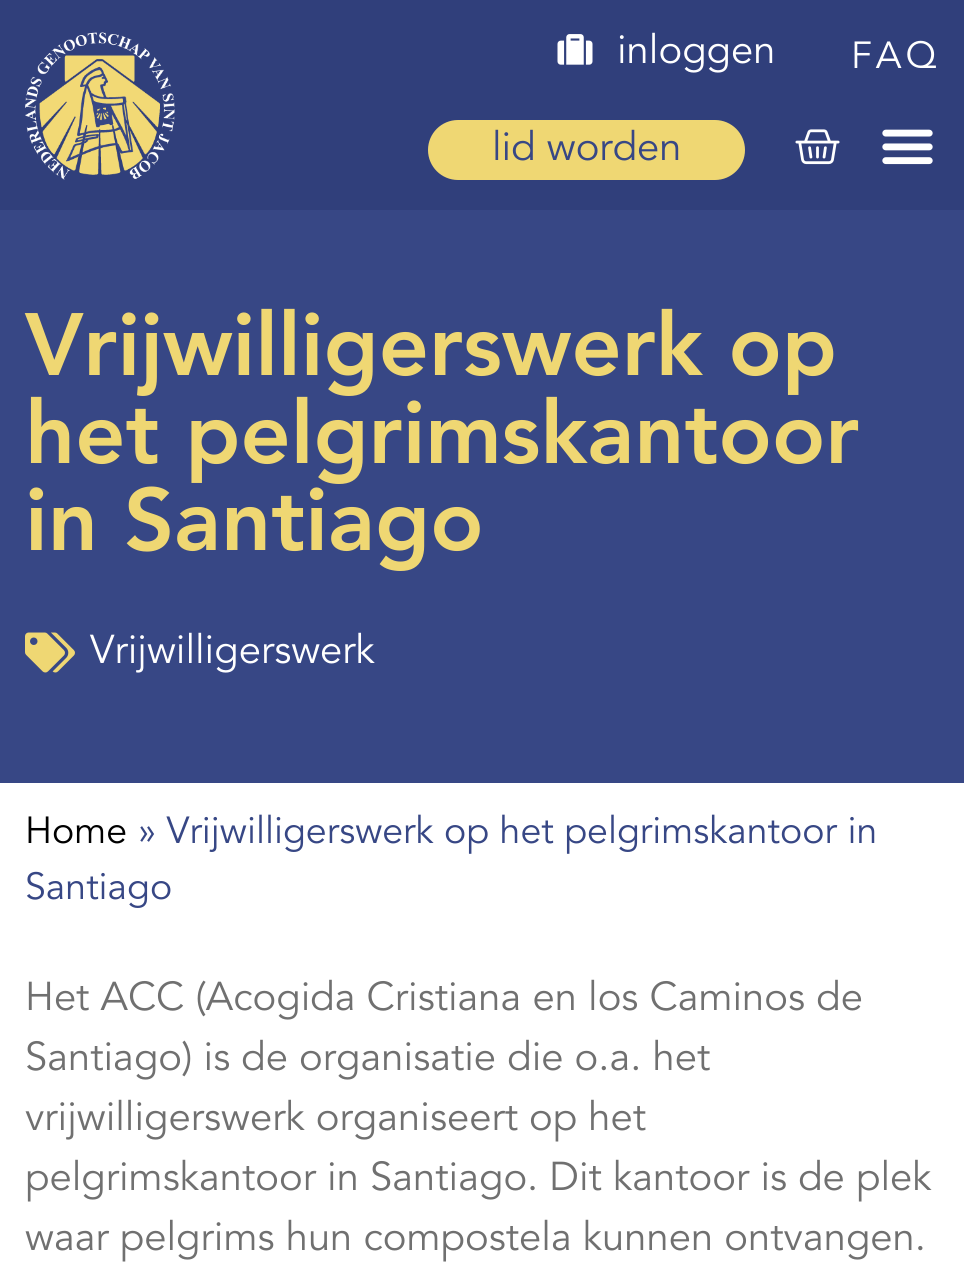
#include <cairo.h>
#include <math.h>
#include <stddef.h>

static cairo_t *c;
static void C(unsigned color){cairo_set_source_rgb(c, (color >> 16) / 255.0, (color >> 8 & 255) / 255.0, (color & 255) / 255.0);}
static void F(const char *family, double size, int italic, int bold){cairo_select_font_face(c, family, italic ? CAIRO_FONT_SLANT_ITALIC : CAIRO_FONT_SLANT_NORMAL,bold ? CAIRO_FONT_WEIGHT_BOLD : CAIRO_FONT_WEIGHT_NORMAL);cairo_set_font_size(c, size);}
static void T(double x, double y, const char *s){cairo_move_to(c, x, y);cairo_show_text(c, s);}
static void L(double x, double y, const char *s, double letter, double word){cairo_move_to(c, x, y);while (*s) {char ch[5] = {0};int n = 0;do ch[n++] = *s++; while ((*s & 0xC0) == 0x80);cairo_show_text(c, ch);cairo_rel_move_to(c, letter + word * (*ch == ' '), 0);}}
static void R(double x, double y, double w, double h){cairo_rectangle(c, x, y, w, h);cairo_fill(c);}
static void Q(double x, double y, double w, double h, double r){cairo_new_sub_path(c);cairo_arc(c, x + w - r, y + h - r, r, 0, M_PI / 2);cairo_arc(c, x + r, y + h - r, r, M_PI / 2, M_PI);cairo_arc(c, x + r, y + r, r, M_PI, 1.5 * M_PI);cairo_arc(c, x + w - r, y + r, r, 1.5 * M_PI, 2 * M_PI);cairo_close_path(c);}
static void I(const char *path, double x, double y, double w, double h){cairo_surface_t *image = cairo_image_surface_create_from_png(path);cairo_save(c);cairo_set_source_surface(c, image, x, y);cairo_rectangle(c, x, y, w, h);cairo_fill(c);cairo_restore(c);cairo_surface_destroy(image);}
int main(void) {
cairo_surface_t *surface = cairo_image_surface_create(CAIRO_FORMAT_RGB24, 964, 1264);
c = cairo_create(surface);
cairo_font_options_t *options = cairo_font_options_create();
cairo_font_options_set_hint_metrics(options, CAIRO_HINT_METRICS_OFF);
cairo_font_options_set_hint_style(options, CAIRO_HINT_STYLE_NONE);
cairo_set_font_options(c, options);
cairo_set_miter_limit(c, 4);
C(0xffffff);
cairo_paint(c);
C(0x303f7b);
R(0,0,964,210);
I("1.png",25,32,150,148);
I("2.png",557,34,36,31);
F("Avenir",40,0,0);
C(0xffffff);
T(617,63,"inloggen");
F("Avenir",37.5,0,0);
L(851,68,"FAQ",4,0);
C(0xefd773);
Q(429.5,121.5,314,57,28.5);
cairo_fill_preserve(c);
cairo_set_line_width(c,3);
cairo_stroke(c);
F("Avenir",40,0,0);
C(0x374785);
T(492,160,"lid worden");
I("3.png",795,129,45,36);
I("4.png",882,129,51,36);
R(0,210,964,573);
F("Avenir Black",87.5,0,0);
C(0xefd773);
T(25,375,"Vrijwilligerswerk op");
T(25,463,"het pelgrimskantoor");
T(25,550,"in Santiago");
I("5.png",25,632,50,41);
F("Avenir",40,0,0);
C(0xffffff);
T(90,663,"Vrijwilligerswerk");
F("Avenir",37.5,0,0);
C(0x000000);
T(25,843,"Home");
C(0x374785);
T(138,843,"» Vrijwilligerswerk op het pelgrimskantoor in");
T(25,899,"Santiago");
F("Avenir",40,0,0);
C(0x707070);
T(25,1010,"Het ACC (Acogida Cristiana en los Caminos de");
T(25,1070,"Santiago) is de organisatie die o.a. het");
T(25,1130,"vrijwilligerswerk organiseert op het");
T(25,1190,"pelgrimskantoor in Santiago. Dit kantoor is de plek");
T(25,1250,"waar pelgrims hun compostela kunnen ontvangen.");
cairo_surface_write_to_png(surface, "o.png");
cairo_font_options_destroy(options);
cairo_destroy(c);
cairo_surface_destroy(surface);
return 0;
}
